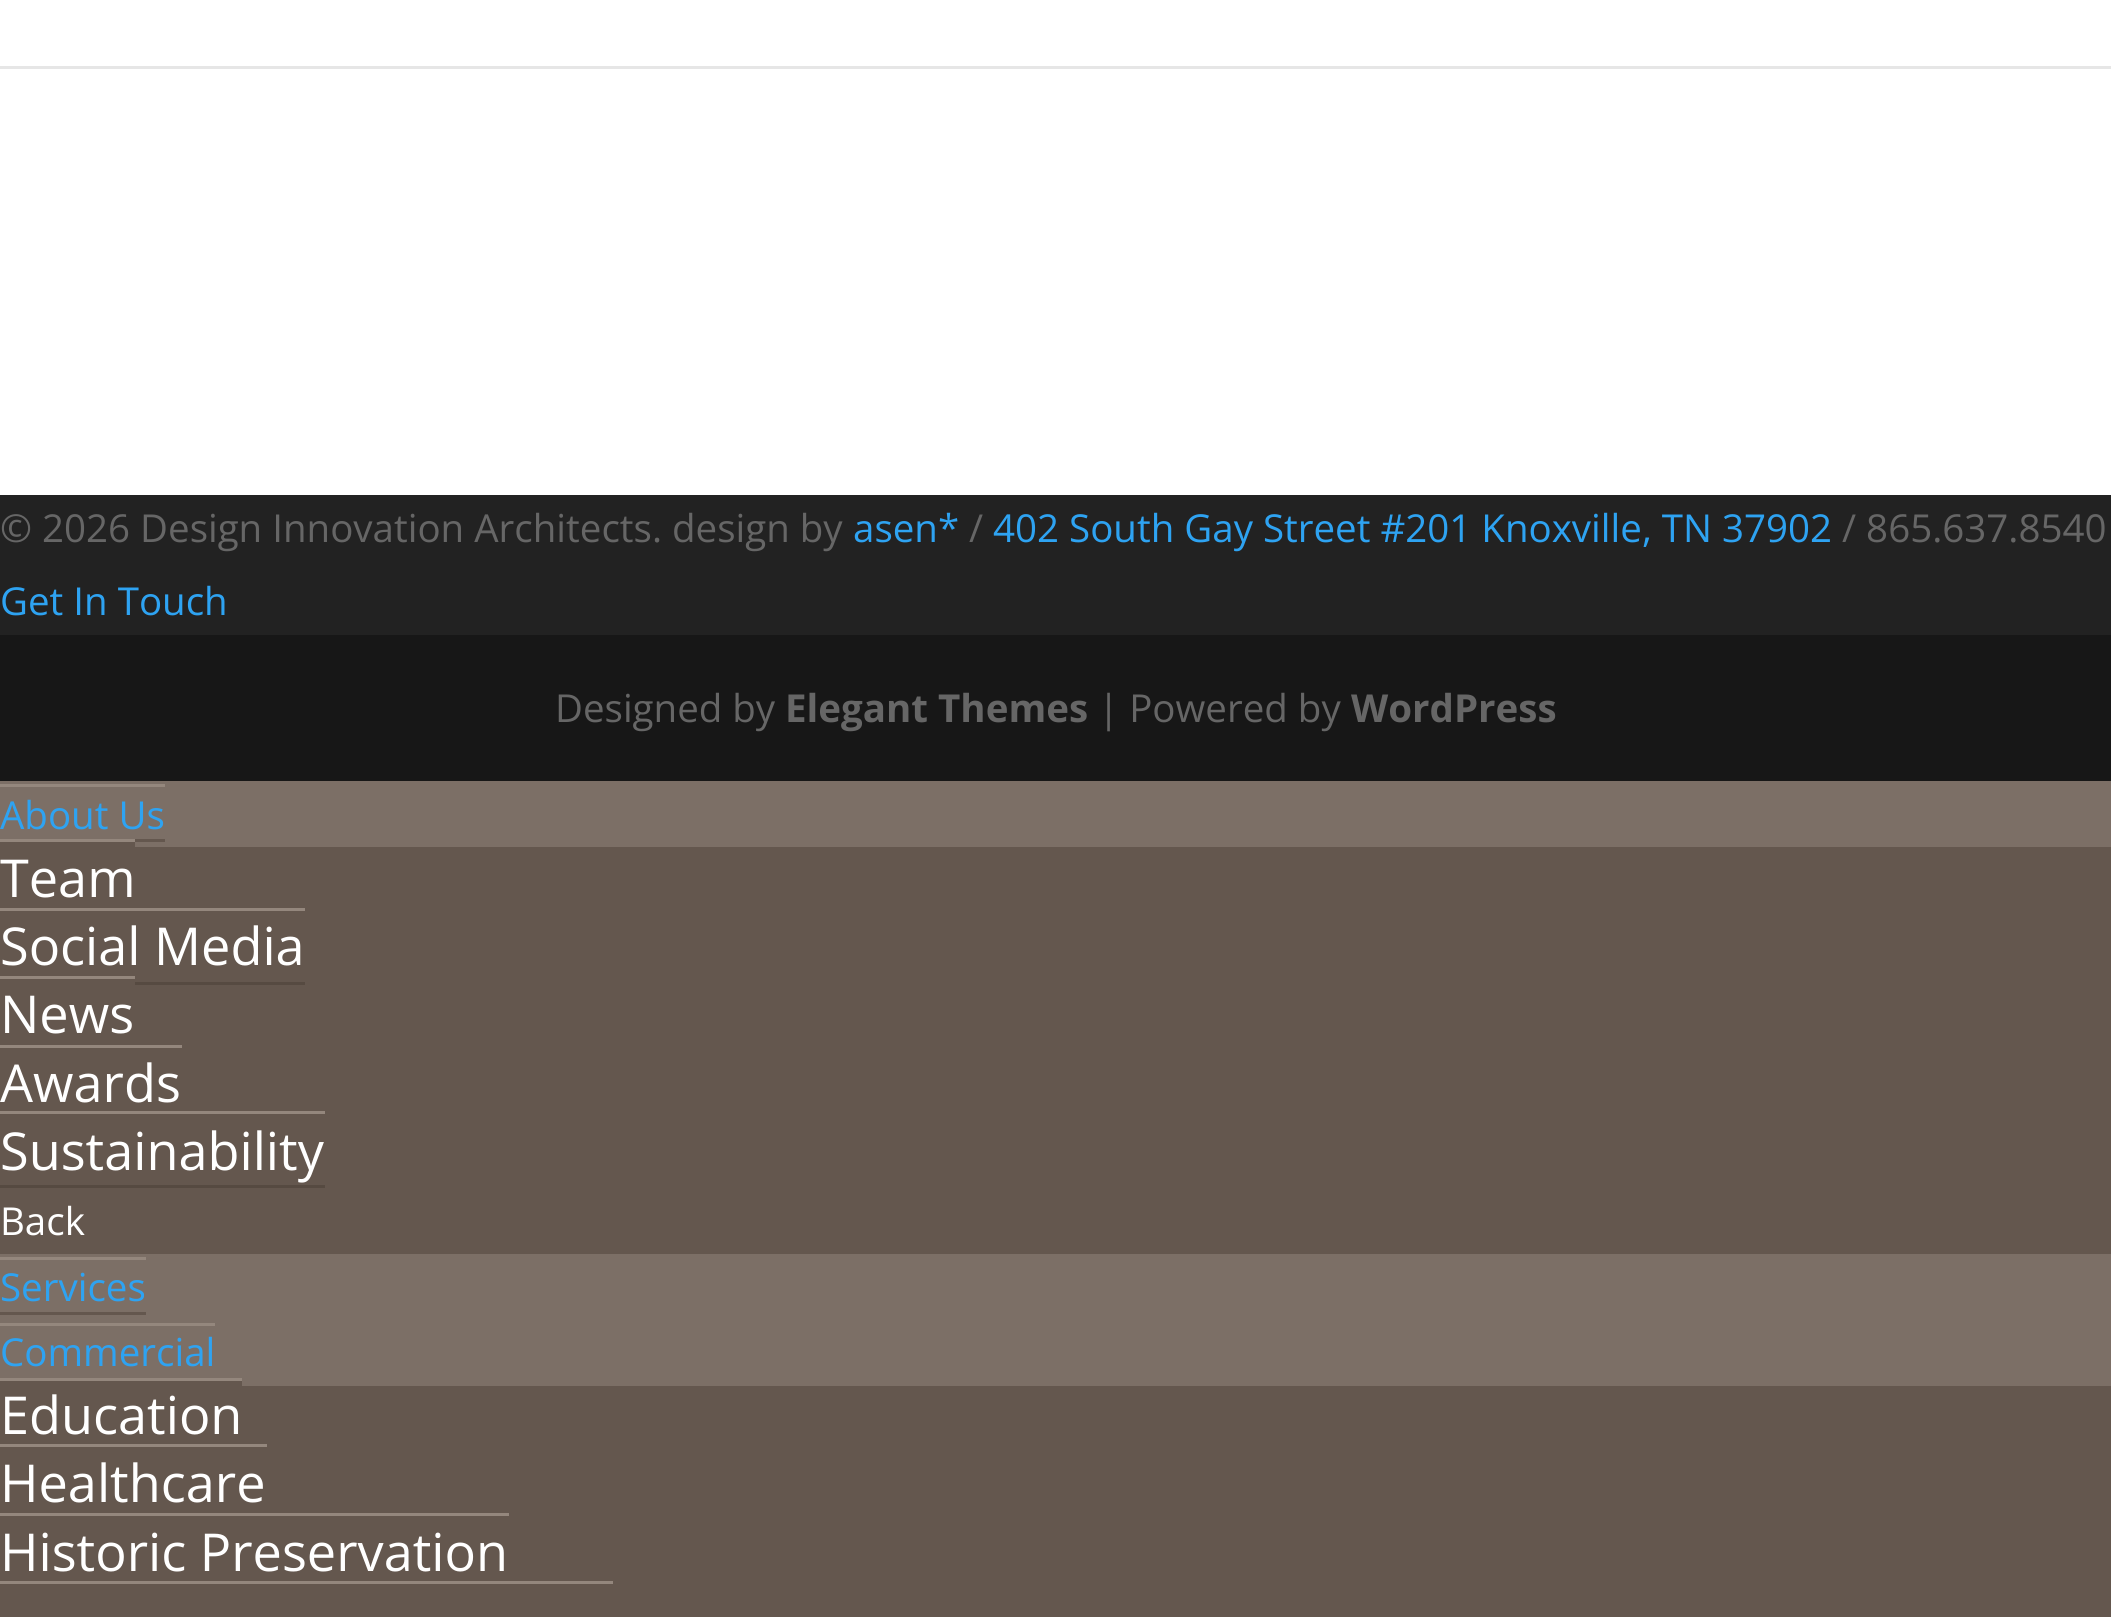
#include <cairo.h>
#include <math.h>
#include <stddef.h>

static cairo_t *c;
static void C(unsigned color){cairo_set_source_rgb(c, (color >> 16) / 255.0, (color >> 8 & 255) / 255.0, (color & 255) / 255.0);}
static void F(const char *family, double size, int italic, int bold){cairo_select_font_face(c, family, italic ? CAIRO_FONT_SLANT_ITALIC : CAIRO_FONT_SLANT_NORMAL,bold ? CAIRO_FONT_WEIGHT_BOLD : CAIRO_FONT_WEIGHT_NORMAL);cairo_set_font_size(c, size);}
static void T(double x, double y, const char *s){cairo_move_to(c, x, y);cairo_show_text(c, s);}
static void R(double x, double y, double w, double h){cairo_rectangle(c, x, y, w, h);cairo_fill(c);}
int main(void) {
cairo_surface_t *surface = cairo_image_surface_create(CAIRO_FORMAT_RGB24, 2111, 1617);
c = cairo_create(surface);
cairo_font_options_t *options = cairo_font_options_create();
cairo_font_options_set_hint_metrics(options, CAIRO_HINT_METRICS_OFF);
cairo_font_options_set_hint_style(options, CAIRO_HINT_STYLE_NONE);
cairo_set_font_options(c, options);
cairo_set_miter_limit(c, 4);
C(0xffffff);
cairo_paint(c);
C(0xe6e6e6);
R(0,66,2111,3);
C(0x222222);
R(0,495,2111,140);
F("Open Sans",38.5,0,0);
C(0x666666);
T(0,542,"© 2026 Design Innovation Architects. design by");
C(0x2ea3f2);
T(853,542,"asen*");
C(0x666666);
T(969,542,"/");
C(0x2ea3f2);
T(993,542,"402 South Gay Street #201 Knoxville, TN 37902");
C(0x666666);
T(1842,542,"/ 865.637.8540");
C(0x2ea3f2);
T(0,615,"Get In Touch");
C(0x171717);
R(0,635,2111,146);
C(0x666666);
T(555,722,"Designed by");
F("Open Sans",38.5,0,1);
T(785,722,"Elegant Themes");
F("Open Sans",38.5,0,0);
T(1098,722,"| Powered by");
F("Open Sans",38.5,0,1);
T(1351,722,"WordPress");
C(0x7c6f66);
R(0,781,2111,605);
F("Open Sans",38.5,0,0);
C(0x2ea3f2);
T(0,829,"About Us");
C(0x94877d);
R(0,784,165,3);
C(0x64574e);
R(135,839,30,3);
R(0,847,2111,407);
F("Open Sans",52.25,0,0);
C(0xffffff);
T(0,897,"Team");
C(0x64574e);
R(0,842,135,5);
C(0x94877d);
R(0,839,135,3);
C(0xffffff);
T(0,965,"Social Media");
C(0x94877d);
R(0,908,305,3);
C(0x564a41);
R(135,982,170,3);
C(0xffffff);
T(0,1033,"News");
C(0x94877d);
R(0,976,135,3);
C(0xffffff);
T(0,1102,"Awards");
C(0x94877d);
R(0,1045,182,3);
C(0xffffff);
T(0,1170,"Sustainability");
C(0x94877d);
R(0,1111,325,3);
C(0x564a41);
R(0,1185,325,3);
F("Open Sans",38.5,0,0);
C(0xffffff);
T(0,1235,"Back");
C(0x2ea3f2);
T(0,1301,"Services");
C(0x94877d);
R(0,1257,146,3);
C(0x64574e);
R(0,1312,146,3);
C(0x2ea3f2);
T(0,1366,"Commercial");
C(0x94877d);
R(0,1323,215,3);
C(0x64574e);
R(242,1386,1869,231);
R(0,1381,242,63);
F("Open Sans",52.25,0,0);
C(0xffffff);
T(0,1434,"Education");
C(0x94877d);
R(0,1378,242,3);
C(0x64574e);
R(0,1447,242,66);
C(0xffffff);
T(0,1502,"Healthcare");
C(0x94877d);
R(0,1444,267,3);
C(0x64574e);
R(0,1516,242,65);
C(0xffffff);
T(0,1571,"Historic Preservation");
C(0x94877d);
R(0,1513,509,3);
R(0,1581,613,3);
C(0x64574e);
R(0,1584,242,33);
cairo_surface_write_to_png(surface, "o.png");
cairo_font_options_destroy(options);
cairo_destroy(c);
cairo_surface_destroy(surface);
return 0;
}
